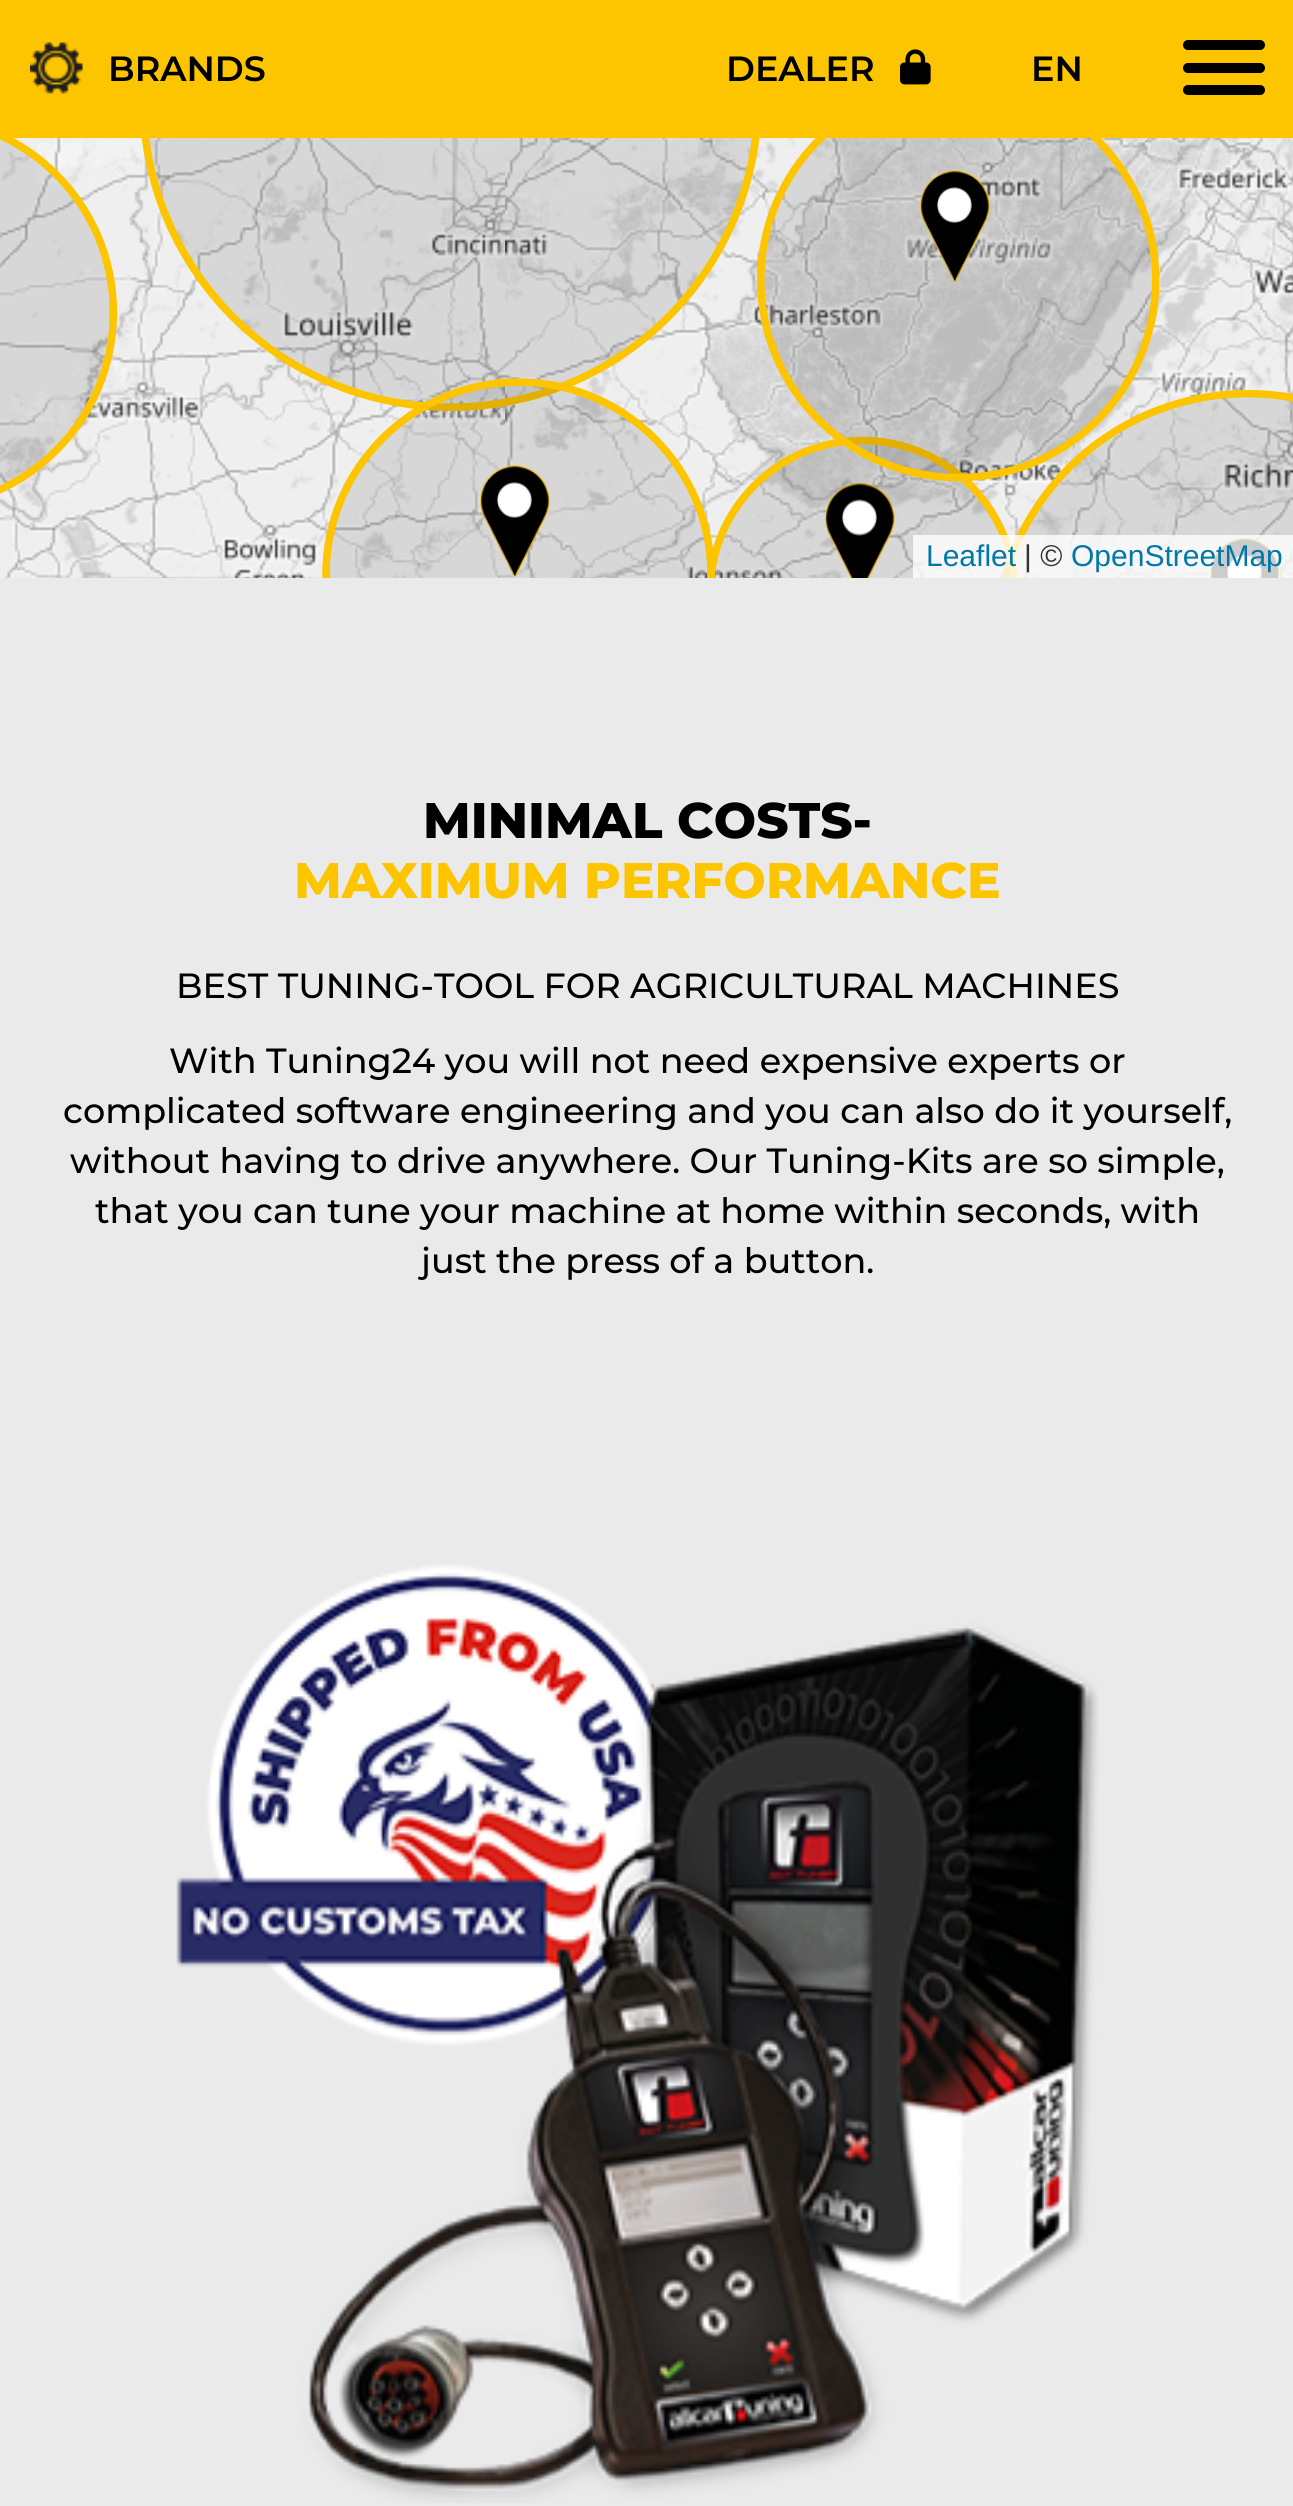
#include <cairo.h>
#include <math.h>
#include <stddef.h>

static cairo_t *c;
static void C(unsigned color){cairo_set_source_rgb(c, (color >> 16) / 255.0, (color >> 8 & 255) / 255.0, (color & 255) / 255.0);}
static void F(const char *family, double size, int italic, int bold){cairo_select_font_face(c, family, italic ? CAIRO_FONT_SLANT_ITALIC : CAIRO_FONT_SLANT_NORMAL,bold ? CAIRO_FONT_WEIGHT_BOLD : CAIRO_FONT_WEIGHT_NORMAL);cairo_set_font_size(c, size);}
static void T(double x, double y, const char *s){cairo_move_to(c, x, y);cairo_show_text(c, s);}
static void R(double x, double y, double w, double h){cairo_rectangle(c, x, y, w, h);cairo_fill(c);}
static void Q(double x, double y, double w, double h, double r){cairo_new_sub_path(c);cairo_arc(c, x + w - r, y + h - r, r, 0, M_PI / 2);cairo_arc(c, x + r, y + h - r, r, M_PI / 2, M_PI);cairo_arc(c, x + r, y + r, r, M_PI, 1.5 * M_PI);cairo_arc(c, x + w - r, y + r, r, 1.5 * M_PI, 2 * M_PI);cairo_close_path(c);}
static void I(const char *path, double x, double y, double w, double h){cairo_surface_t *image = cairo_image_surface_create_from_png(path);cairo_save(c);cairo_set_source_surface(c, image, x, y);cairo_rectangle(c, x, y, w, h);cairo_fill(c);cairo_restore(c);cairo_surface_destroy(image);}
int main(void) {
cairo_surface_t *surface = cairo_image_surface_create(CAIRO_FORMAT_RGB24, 1293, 2506);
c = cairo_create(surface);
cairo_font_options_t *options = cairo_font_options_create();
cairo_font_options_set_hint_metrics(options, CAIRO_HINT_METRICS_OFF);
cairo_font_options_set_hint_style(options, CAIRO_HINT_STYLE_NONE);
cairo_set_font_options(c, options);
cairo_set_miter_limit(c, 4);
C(0xeaeaea);
cairo_paint(c);
C(0xfdc400);
R(0,0,1293,138);
I("1.png",30,42,53,52);
F("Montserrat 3 Thin",35,0,0);
C(0x000000);
T(108,81,"BRANDS");
T(726,81,"DEALER");
I("2.png",900,49,31,36);
T(1031,81,"EN");
Q(1183,40,82,10,5);
cairo_fill(c);
Q(1183,63,82,10,5);
cairo_fill(c);
Q(1183,85,82,10,5);
cairo_fill(c);
I("3.png",0,138,505,440);
I("4.png",505,138,640,440);
I("5.png",1145,138,148,440);
I("6.png",0,138,1293,440);
I("7.png",920,170,70,113);
I("8.png",480,465,70,113);
I("9.png",825,483,70,95);
I("10.png",1210,538,70,40);
cairo_set_source_rgba(c,1,1,1,0.8);
R(913,535,380,43);
F("Liberation Sans",30,0,0);
C(0x0078a8);
T(926,566,"Leaflet");
C(0x333333);
T(1024,566,"| ©");
C(0x0078a8);
T(1071,566,"OpenStreetMap");
F("Montserrat Thin",50,0,0);
C(0x000000);
T(423,838,"MINIMAL COSTS-");
C(0xfdc400);
T(294,898,"MAXIMUM PERFORMANCE");
F("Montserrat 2 Thin",35,0,0);
C(0x000000);
T(176,998,"BEST TUNING-TOOL FOR AGRICULTURAL MACHINES");
T(169,1073,"With Tuning24 you will not need expensive experts or");
T(63,1123,"complicated software engineering and you can also do it yourself,");
T(70,1173,"without having to drive anywhere. Our Tuning-Kits are so simple,");
T(95,1223,"that you can tune your machine at home within seconds, with");
T(421,1273,"just the press of a button.");
I("11.png",176,1564,923,939);
cairo_surface_write_to_png(surface, "o.png");
cairo_font_options_destroy(options);
cairo_destroy(c);
cairo_surface_destroy(surface);
return 0;
}
